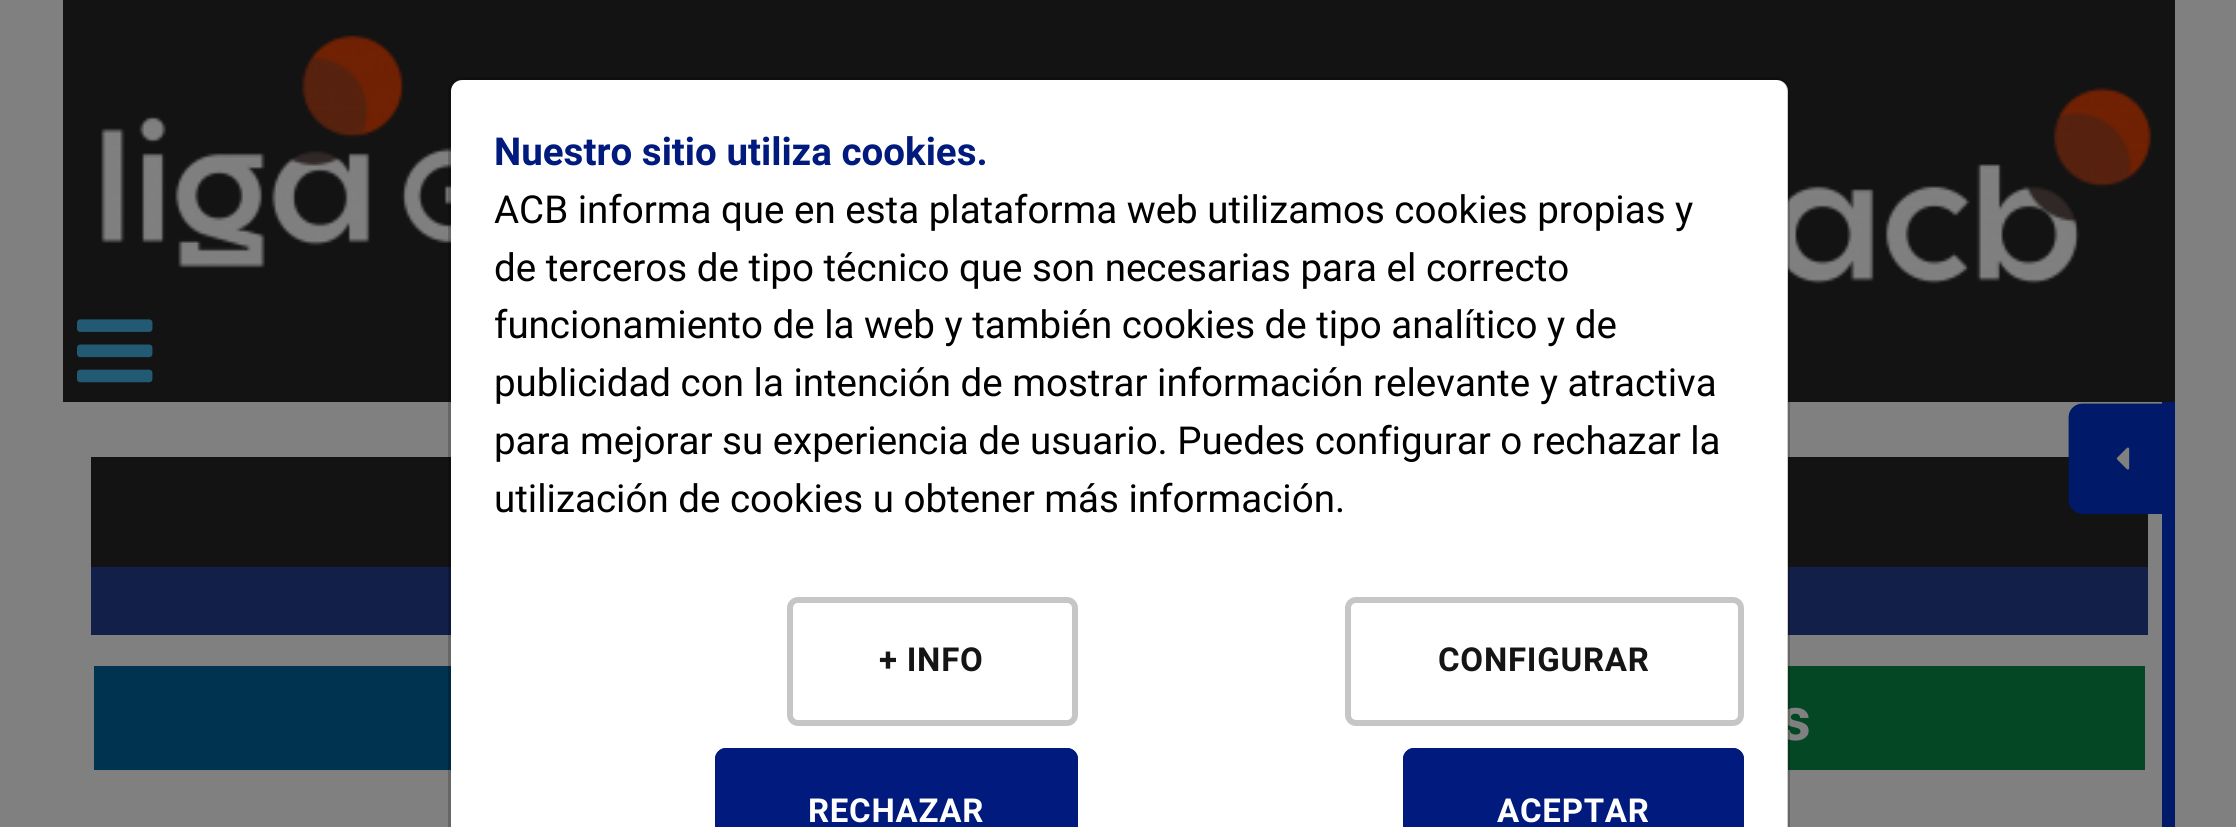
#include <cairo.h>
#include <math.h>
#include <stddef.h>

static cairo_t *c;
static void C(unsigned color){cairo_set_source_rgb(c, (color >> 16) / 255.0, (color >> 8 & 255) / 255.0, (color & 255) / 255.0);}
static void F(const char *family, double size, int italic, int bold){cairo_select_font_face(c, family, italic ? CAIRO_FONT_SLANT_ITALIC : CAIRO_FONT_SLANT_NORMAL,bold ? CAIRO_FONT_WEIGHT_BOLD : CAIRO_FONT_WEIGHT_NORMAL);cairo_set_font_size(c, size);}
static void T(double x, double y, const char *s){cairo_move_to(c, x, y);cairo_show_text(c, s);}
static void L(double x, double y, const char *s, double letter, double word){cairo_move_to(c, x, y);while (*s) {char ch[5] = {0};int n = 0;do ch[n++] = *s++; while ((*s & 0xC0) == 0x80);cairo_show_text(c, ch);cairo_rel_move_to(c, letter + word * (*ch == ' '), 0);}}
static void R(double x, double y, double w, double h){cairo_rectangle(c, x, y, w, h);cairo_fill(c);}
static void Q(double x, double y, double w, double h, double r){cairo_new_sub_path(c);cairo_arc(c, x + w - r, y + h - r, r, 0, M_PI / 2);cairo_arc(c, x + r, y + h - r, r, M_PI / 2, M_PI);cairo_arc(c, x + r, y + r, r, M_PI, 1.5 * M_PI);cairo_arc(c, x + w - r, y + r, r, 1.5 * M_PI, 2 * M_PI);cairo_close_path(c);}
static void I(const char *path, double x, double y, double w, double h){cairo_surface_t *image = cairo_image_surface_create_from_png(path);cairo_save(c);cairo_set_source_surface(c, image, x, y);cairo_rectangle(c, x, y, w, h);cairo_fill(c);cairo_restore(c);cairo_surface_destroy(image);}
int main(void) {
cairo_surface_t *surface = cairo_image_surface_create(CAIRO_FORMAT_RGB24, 2236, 827);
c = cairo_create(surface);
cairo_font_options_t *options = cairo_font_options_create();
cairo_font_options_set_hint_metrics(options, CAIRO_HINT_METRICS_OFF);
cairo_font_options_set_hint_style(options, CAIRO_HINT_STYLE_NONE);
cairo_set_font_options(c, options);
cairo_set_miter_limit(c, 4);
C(0x808080);
cairo_paint(c);
C(0x131313);
R(63,0,2112,402);
R(91,457,2057,110);
C(0x111f49);
R(91,567,2057,68);
C(0x034724);
R(1788,666,357,104);
F("Roboto",60,0,1);
C(0x808080);
T(1780,740,"s");
C(0xffffff);
cairo_new_path(c);
cairo_move_to(c,462,80);
cairo_line_to(c,1777,80);
cairo_curve_to(c,1783,80,1788,85,1788,91);
cairo_line_to(c,1788,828);
cairo_line_to(c,451,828);
cairo_line_to(c,451,91);
cairo_curve_to(c,451,85,456,80,462,80);
cairo_close_path(c);
cairo_fill(c);
I("2.png",101,35,350,233);
I("3.png",1788,87,364,197);
C(0x00334f);
R(94,666,357,104);
Q(449.5,78.5,1339,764,12.5);
cairo_set_source_rgba(c,0,0,0,0.2);
cairo_set_line_width(c,3);
cairo_stroke(c);
F("Roboto",38.5,0,1);
C(0x001a7d);
T(494,165,"Nuestro sitio utiliza cookies.");
F("Roboto",38.5,0,0);
C(0x000000);
T(494,223,"ACB informa que en esta plataforma web utilizamos cookies propias y");
T(494,281,"de terceros de tipo técnico que son necesarias para el correcto");
T(494,338,"funcionamiento de la web y también cookies de tipo analítico y de");
T(494,396,"publicidad con la intención de mostrar información relevante y atractiva");
T(494,454,"para mejorar su experiencia de usuario. Puedes configurar o rechazar la");
T(494,512,"utilización de cookies u obtener más información.");
Q(790,600,285,123,8);
C(0xc6c6c6);
cairo_set_line_width(c,6);
cairo_stroke(c);
F("Roboto",33,0,1);
C(0x151515);
L(879,671,"+ INFO",.75,0);
Q(1348,600,393,123,8);
C(0xc6c6c6);
cairo_stroke(c);
C(0x151515);
L(1438,671,"CONFIGURAR",.75,0);
C(0x001a7d);
cairo_new_path(c);
cairo_move_to(c,726,748);
cairo_line_to(c,1067,748);
cairo_curve_to(c,1073,748,1078,753,1078,759);
cairo_line_to(c,1078,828);
cairo_line_to(c,715,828);
cairo_line_to(c,715,759);
cairo_curve_to(c,715,753,720,748,726,748);
cairo_close_path(c);
cairo_fill(c);
Q(718,751,357,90,8);
cairo_stroke(c);
C(0xffffff);
L(808,822,"RECHAZAR",.75,0);
C(0x001a7d);
cairo_new_path(c);
cairo_move_to(c,1414,748);
cairo_line_to(c,1733,748);
cairo_curve_to(c,1739,748,1744,753,1744,759);
cairo_line_to(c,1744,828);
cairo_line_to(c,1403,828);
cairo_line_to(c,1403,759);
cairo_curve_to(c,1403,753,1408,748,1414,748);
cairo_close_path(c);
cairo_fill(c);
Q(1406,751,335,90,8);
cairo_stroke(c);
C(0xffffff);
L(1497,822,"ACEPTAR",.75,0);
I("1.png",77,319,76,64);
C(0x001969);
R(2162,402,13,425);
cairo_new_path(c);
cairo_move_to(c,2069,500);
cairo_line_to(c,2069,417);
cairo_curve_to(c,2069,410,2075,404,2082,404);
cairo_line_to(c,2172,404);
cairo_line_to(c,2172,514);
cairo_line_to(c,2082,514);
cairo_curve_to(c,2075,514,2069,507,2069,500);
cairo_close_path(c);
cairo_fill(c);
cairo_new_path(c);
cairo_move_to(c,2070,500);
cairo_line_to(c,2070,417.5);
cairo_curve_to(c,2070,410.5,2075.5,405,2082.5,405);
cairo_line_to(c,2170.5,405);
cairo_line_to(c,2170.5,512);
cairo_line_to(c,2082.5,512);
cairo_curve_to(c,2075.5,512,2070,506.5,2070,500);
cairo_close_path(c);
cairo_set_line_width(c,2.8);
cairo_stroke(c);
I("4.png",2116,447,14,23);
cairo_surface_write_to_png(surface, "o.png");
cairo_font_options_destroy(options);
cairo_destroy(c);
cairo_surface_destroy(surface);
return 0;
}
